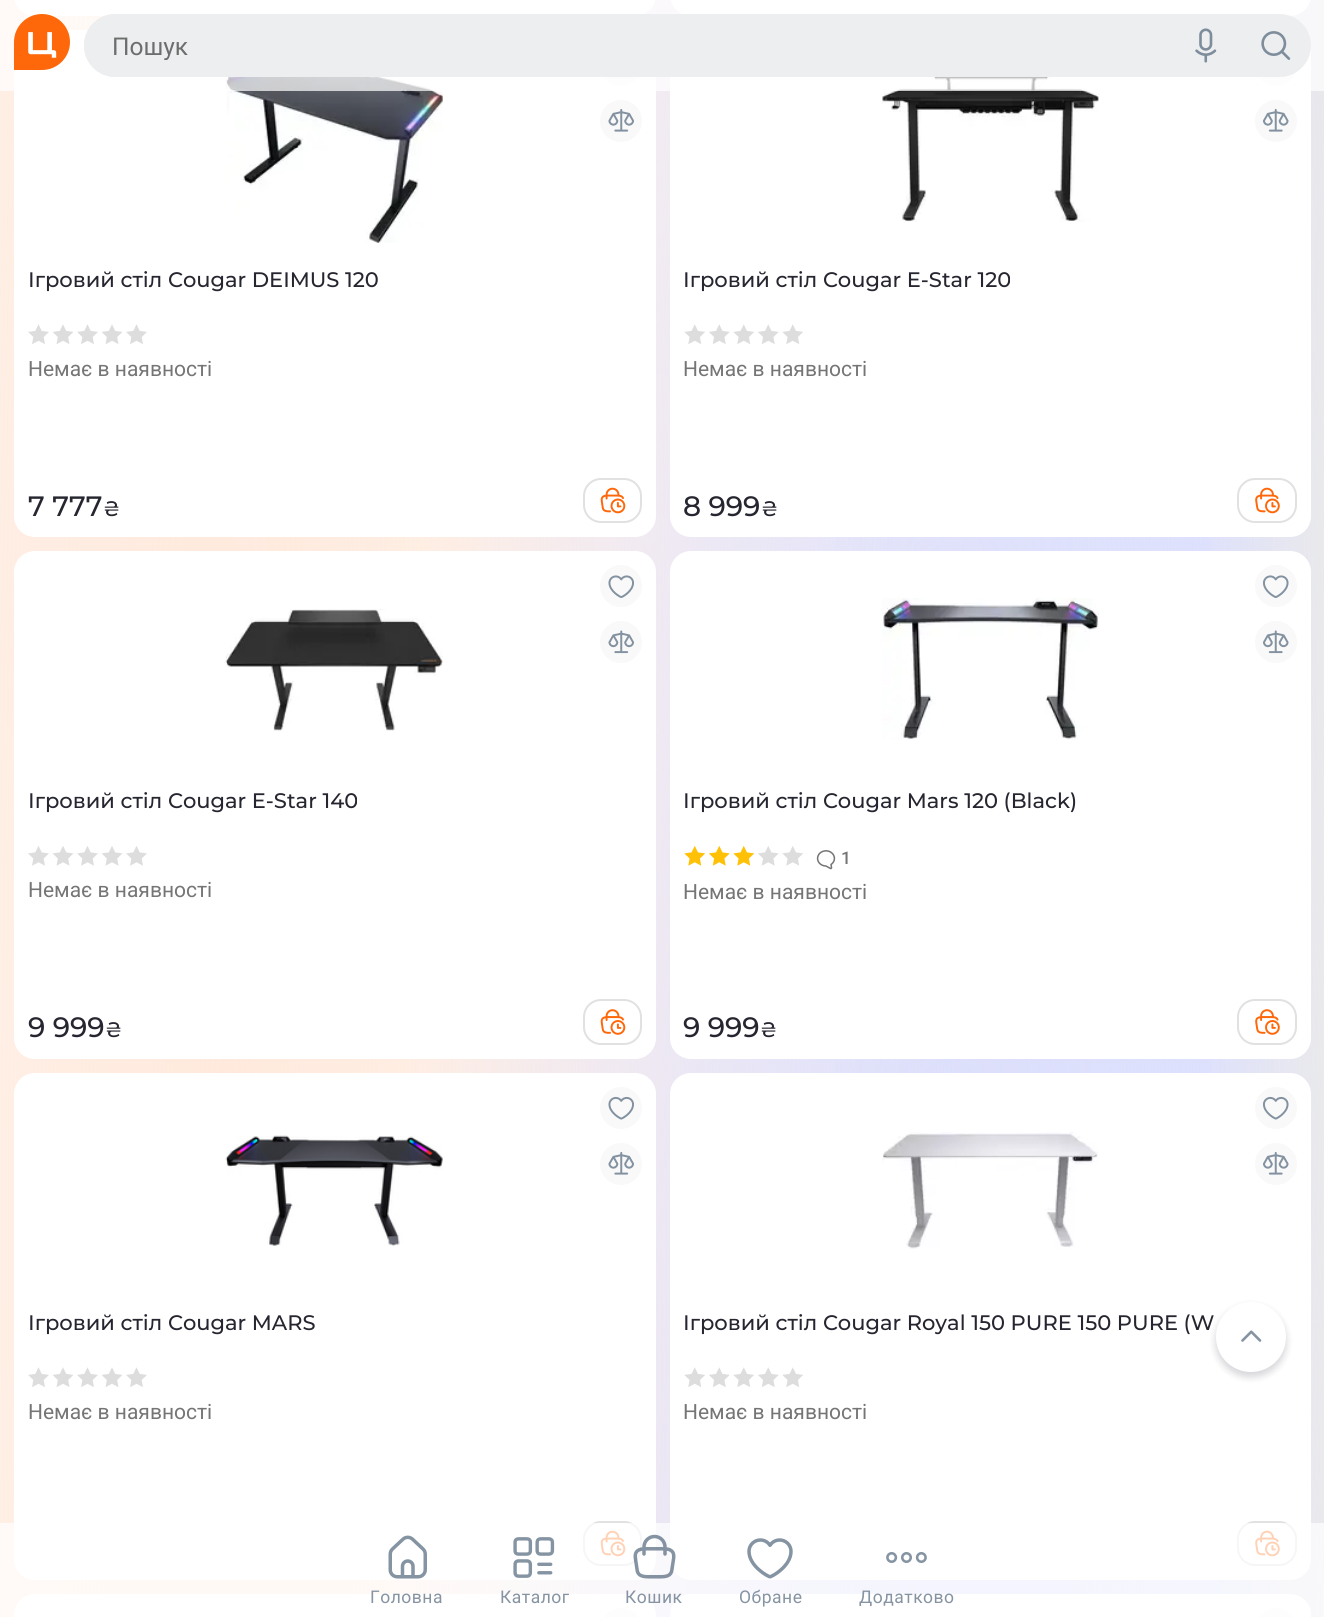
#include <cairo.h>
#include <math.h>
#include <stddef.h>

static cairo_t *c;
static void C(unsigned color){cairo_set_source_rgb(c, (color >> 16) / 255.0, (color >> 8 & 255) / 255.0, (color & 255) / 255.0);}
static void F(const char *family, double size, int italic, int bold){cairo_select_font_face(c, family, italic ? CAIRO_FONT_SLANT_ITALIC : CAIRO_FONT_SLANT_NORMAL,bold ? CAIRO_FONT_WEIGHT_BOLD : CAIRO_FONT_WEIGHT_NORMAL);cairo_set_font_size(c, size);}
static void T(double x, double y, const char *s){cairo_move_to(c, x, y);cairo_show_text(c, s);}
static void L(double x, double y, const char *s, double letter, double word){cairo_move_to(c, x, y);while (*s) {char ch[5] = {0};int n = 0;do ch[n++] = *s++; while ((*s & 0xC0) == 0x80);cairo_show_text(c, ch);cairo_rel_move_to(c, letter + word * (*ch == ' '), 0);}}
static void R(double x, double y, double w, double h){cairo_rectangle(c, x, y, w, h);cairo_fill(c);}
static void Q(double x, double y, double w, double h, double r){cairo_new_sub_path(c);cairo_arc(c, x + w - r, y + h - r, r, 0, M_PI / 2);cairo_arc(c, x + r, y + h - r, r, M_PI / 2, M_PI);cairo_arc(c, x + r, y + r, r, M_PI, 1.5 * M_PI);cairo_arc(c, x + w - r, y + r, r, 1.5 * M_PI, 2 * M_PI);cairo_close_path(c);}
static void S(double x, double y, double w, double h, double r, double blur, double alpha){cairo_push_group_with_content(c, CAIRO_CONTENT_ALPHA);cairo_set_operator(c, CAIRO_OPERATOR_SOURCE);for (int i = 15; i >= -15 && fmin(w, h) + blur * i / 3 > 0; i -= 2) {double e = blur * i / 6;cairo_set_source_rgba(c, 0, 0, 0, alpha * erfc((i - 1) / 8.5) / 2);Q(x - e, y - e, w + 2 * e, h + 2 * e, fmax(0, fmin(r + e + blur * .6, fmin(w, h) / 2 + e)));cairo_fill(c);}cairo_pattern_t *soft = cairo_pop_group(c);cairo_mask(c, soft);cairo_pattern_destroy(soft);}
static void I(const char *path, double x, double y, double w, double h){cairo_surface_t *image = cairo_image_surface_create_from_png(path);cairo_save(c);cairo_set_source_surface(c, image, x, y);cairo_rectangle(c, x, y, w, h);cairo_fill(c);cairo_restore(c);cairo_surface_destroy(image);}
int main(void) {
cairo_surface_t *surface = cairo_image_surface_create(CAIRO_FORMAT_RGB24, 1324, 1617);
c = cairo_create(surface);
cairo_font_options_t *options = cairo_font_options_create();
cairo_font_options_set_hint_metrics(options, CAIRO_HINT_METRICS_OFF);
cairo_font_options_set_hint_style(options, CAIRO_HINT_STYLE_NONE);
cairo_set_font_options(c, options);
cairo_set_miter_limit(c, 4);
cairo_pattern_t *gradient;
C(0xffffff);
cairo_paint(c);
gradient = cairo_pattern_create_radial(0,0,0,0,0,1);
cairo_pattern_set_matrix(gradient, &(cairo_matrix_t){1.0 / 615, 0, 0, 1.0 / 4788, -1.0 * 166 / 615, -1.0 * -3328 / 4788});
cairo_pattern_add_color_stop_rgba(gradient,0,1,0.914,0.863,1);
cairo_pattern_add_color_stop_rgba(gradient,1,1,1,1,1);
cairo_set_source(c,gradient);
cairo_pattern_destroy(gradient);
R(0,0,548,1111);
gradient = cairo_pattern_create_radial(0,0,0,0,0,1);
cairo_pattern_set_matrix(gradient, &(cairo_matrix_t){1.0 / 926, 0, 0, 1.0 / 8934, -1.0 * 226 / 926, -1.0 * 1195 / 8934});
cairo_pattern_add_color_stop_rgba(gradient,0,1,0.914,0.863,1);
cairo_pattern_add_color_stop_rgba(gradient,1,1,0.914,0.863,0);
cairo_set_source(c,gradient);
cairo_pattern_destroy(gradient);
R(0,0,1094,1617);
gradient = cairo_pattern_create_radial(0,0,0,0,0,1);
cairo_pattern_set_matrix(gradient, &(cairo_matrix_t){1.0 / 577, 0, 0, 1.0 / 5593, -1.0 * 951 / 577, -1.0 * 2718 / 5593});
cairo_pattern_add_color_stop_rgba(gradient,0,0.831,0.847,0.988,1);
cairo_pattern_add_color_stop_rgba(gradient,1,0.831,0.847,0.988,0);
cairo_set_source(c,gradient);
cairo_pattern_destroy(gradient);
R(415,0,909,1617);
gradient = cairo_pattern_create_radial(0,0,0,0,0,1);
cairo_pattern_set_matrix(gradient, &(cairo_matrix_t){1.0 / 686, 0, 0, 1.0 / 7106, -1.0 * 1453 / 686, -1.0 * -308 / 7106});
cairo_pattern_add_color_stop_rgba(gradient,0,0.831,0.847,0.988,1);
cairo_pattern_add_color_stop_rgba(gradient,1,0.831,0.847,0.988,0);
cairo_set_source(c,gradient);
cairo_pattern_destroy(gradient);
R(835,0,489,1617);
gradient = cairo_pattern_create_radial(0,0,0,0,0,1);
cairo_pattern_set_matrix(gradient, &(cairo_matrix_t){1.0 / 321, 0, 0, 1.0 / 5651, -1.0 * 1517 / 321, -1.0 * 651 / 5651});
cairo_pattern_add_color_stop_rgba(gradient,0,1,0.973,0.82,1);
cairo_pattern_add_color_stop_rgba(gradient,1,1,0.973,0.82,0);
cairo_set_source(c,gradient);
cairo_pattern_destroy(gradient);
R(1210,0,114,1617);
C(0xffffff);
Q(14,-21,642,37,21);
cairo_fill(c);
Q(670,-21,641,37,21);
cairo_fill(c);
Q(14,30,642,507,21);
cairo_fill(c);
C(0xf9f9f9);
cairo_arc(c,621,65,21,0,2 * M_PI);
cairo_fill(c);
I("5.png",225,77,218,166);
C(0xffffff);
Q(670,30,641,507,21);
cairo_fill(c);
C(0xf9f9f9);
cairo_arc(c,1276,65,21,0,2 * M_PI);
cairo_fill(c);
I("10.png",882,77,217,145);
cairo_set_source_rgba(c,1,1,1,0.7);
R(0,0,1324,91);
I("1.png",14,14,56,56);
C(0xeceeef);
Q(84,14,1227,63,31.5);
cairo_fill(c);
cairo_new_path(c);
cairo_move_to(c,115.5,14);
cairo_line_to(c,1171,14);
cairo_line_to(c,1171,77);
cairo_line_to(c,115.5,77);
cairo_curve_to(c,98,77,84,63,84,45.5);
cairo_curve_to(c,84,28,98,14,115.5,14);
cairo_close_path(c);
cairo_fill(c);
cairo_save(c);
cairo_rectangle(c,112,32,1031,28);
cairo_clip(c);
F("Roboto",24.5,0,0);
C(0x6d6d6e);
T(112,55,"Пошук");
cairo_restore(c);
I("2.png",1195,28,22,35);
I("3.png",1261,31,30,29);
C(0xf9f9f9);
cairo_arc(c,621,121,21,0,2 * M_PI);
cairo_fill(c);
I("4.png",608,109,26,23);
F("Montserrat Medium",21,0,0);
C(0x252630);
T(28,287,"Ігровий стіл Cougar DEIMUS 120");
I("6.png",28,324,21,20);
I("7.png",53,324,20,20);
I("6.png",77,324,21,20);
I("7.png",102,324,20,20);
I("6.png",126,324,21,20);
F("Roboto",21,0,0);
C(0x757575);
T(28,376,"Немає в наявності");
F("Montserrat Medium",28,0,0);
C(0x252630);
T(28,516,"7 777");
F("Montserrat Medium",21,0,0);
T(103,516,"₴");
Q(584,479,57,43,17);
C(0xe1e1e2);
cairo_stroke(c);
I("8.png",600,487,26,27);
C(0xf9f9f9);
cairo_arc(c,1276,121,21,0,2 * M_PI);
cairo_fill(c);
I("9.png",1263,109,26,23);
C(0x252630);
T(683,287,"Ігровий стіл Cougar E-Star 120");
I("11.png",684,324,21,20);
I("12.png",709,324,21,20);
I("11.png",733,324,21,20);
I("12.png",758,324,21,20);
I("11.png",782,324,21,20);
F("Roboto",21,0,0);
C(0x757575);
T(683,376,"Немає в наявності");
F("Montserrat Medium",28,0,0);
C(0x252630);
T(683,516,"8 999");
F("Montserrat Medium",21,0,0);
T(761,516,"₴");
Q(1238,479,58,43,17);
C(0xe1e1e2);
cairo_stroke(c);
I("13.png",1255,487,25,27);
C(0xffffff);
Q(14,551,642,508,21);
cairo_fill(c);
C(0xf9f9f9);
cairo_arc(c,621,586,21,0,2 * M_PI);
cairo_fill(c);
I("14.png",608,575,26,23);
cairo_arc(c,621,642,21,0,2 * M_PI);
cairo_fill(c);
I("15.png",608,630,26,24);
I("16.png",225,609,218,122);
C(0x252630);
T(28,808,"Ігровий стіл Cougar E-Star 140");
I("17.png",28,846,21,20);
I("18.png",53,846,21,20);
I("17.png",77,846,21,20);
I("18.png",102,846,21,20);
I("17.png",126,846,21,20);
F("Roboto",21,0,0);
C(0x757575);
T(28,897,"Немає в наявності");
F("Montserrat Medium",28,0,0);
C(0x252630);
T(28,1037,"9 999");
F("Montserrat Medium",21,0,0);
T(105,1037,"₴");
Q(584,1000,57,44,17);
C(0xe1e1e2);
cairo_stroke(c);
I("19.png",600,1009,26,26);
C(0xffffff);
Q(670,551,641,508,21);
cairo_fill(c);
C(0xf9f9f9);
cairo_arc(c,1276,586,21,0,2 * M_PI);
cairo_fill(c);
I("20.png",1263,575,26,23);
cairo_arc(c,1276,642,21,0,2 * M_PI);
cairo_fill(c);
I("21.png",1263,630,26,24);
I("22.png",882,598,217,142);
C(0x252630);
T(683,808,"Ігровий стіл Cougar Mars 120 (Black)");
I("23.png",684,845,21,21);
I("24.png",709,845,21,21);
I("23.png",733,845,21,21);
I("25.png",758,846,21,20);
I("26.png",782,846,21,20);
I("27.png",816,850,20,20);
F("Roboto Medium",17.5,0,0);
C(0x757575);
T(841,864,"1");
F("Roboto",21,0,0);
T(683,899,"Немає в наявності");
F("Montserrat Medium",28,0,0);
C(0x252630);
T(683,1037,"9 999");
F("Montserrat Medium",21,0,0);
T(760,1037,"₴");
Q(1238,1000,58,44,17);
C(0xe1e1e2);
cairo_stroke(c);
I("28.png",1255,1009,25,26);
C(0xffffff);
Q(14,1073,642,507,21);
cairo_fill(c);
C(0xf9f9f9);
cairo_arc(c,621,1108,21,0,2 * M_PI);
cairo_fill(c);
I("29.png",608,1096,26,24);
cairo_arc(c,621,1164,21,0,2 * M_PI);
cairo_fill(c);
I("4.png",608,1152,26,23);
I("30.png",225,1135,218,111);
C(0x252630);
T(28,1330,"Ігровий стіл Cougar MARS");
I("6.png",28,1367,21,20);
I("7.png",53,1367,20,20);
I("6.png",77,1367,21,20);
I("7.png",102,1367,20,20);
I("6.png",126,1367,21,20);
F("Roboto",21,0,0);
C(0x757575);
T(28,1419,"Немає в наявності");
Q(584,1522,57,43,17);
C(0xe1e1e2);
cairo_stroke(c);
I("8.png",600,1530,26,27);
C(0xffffff);
Q(670,1073,641,507,21);
cairo_fill(c);
C(0xf9f9f9);
cairo_arc(c,1276,1108,21,0,2 * M_PI);
cairo_fill(c);
I("31.png",1263,1096,26,24);
cairo_arc(c,1276,1164,21,0,2 * M_PI);
cairo_fill(c);
I("9.png",1263,1152,26,23);
I("32.png",882,1132,216,117);
F("Montserrat Medium",21,0,0);
C(0x252630);
T(683,1330,"Ігровий стіл Cougar Royal 150 PURE 150 PURE (W");
I("11.png",684,1367,21,20);
I("12.png",709,1367,21,20);
I("11.png",733,1367,21,20);
I("12.png",758,1367,21,20);
I("11.png",782,1367,21,20);
F("Roboto",21,0,0);
C(0x757575);
T(683,1419,"Немає в наявності");
Q(1238,1522,58,43,17);
C(0xe1e1e2);
cairo_stroke(c);
I("13.png",1255,1530,25,27);
C(0xffffff);
Q(14,1594,642,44,21);
cairo_fill(c);
C(0xf9f9f9);
Q(600,1608,42,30,21);
cairo_fill(c);
C(0xffffff);
Q(670,1594,641,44,21);
cairo_fill(c);
C(0xf9f9f9);
Q(1255,1608,42,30,21);
cairo_fill(c);
C(0x00081d);
S(1216,1306,70,70,35,4.5,.08);
S(1216,1307,70,70,35,3.5,.06);
S(1216,1307,70,70,35,4.5,.05);
C(0xffffff);
cairo_arc(c,1251,1337,35,0,2 * M_PI);
cairo_fill(c);
I("33.png",1241,1330,21,12);
cairo_set_source_rgba(c,1,1,1,0.7);
R(0,1523,1324,94);
I("34.png",388,1535,39,44);
F("Roboto",17.5,0,0);
C(0x8593a2);
L(370,1603,"Головна",.5,0);
I("35.png",513,1537,42,41);
L(500,1603,"Каталог",.5,0);
I("36.png",633,1534,43,45);
L(625,1603,"Кошик",.5,0);
I("37.png",747,1538,46,41);
L(739,1603,"Обране",.5,0);
I("38.png",886,1552,41,11);
L(859,1603,"Додатково",.5,0);
cairo_surface_write_to_png(surface, "o.png");
cairo_font_options_destroy(options);
cairo_destroy(c);
cairo_surface_destroy(surface);
return 0;
}
